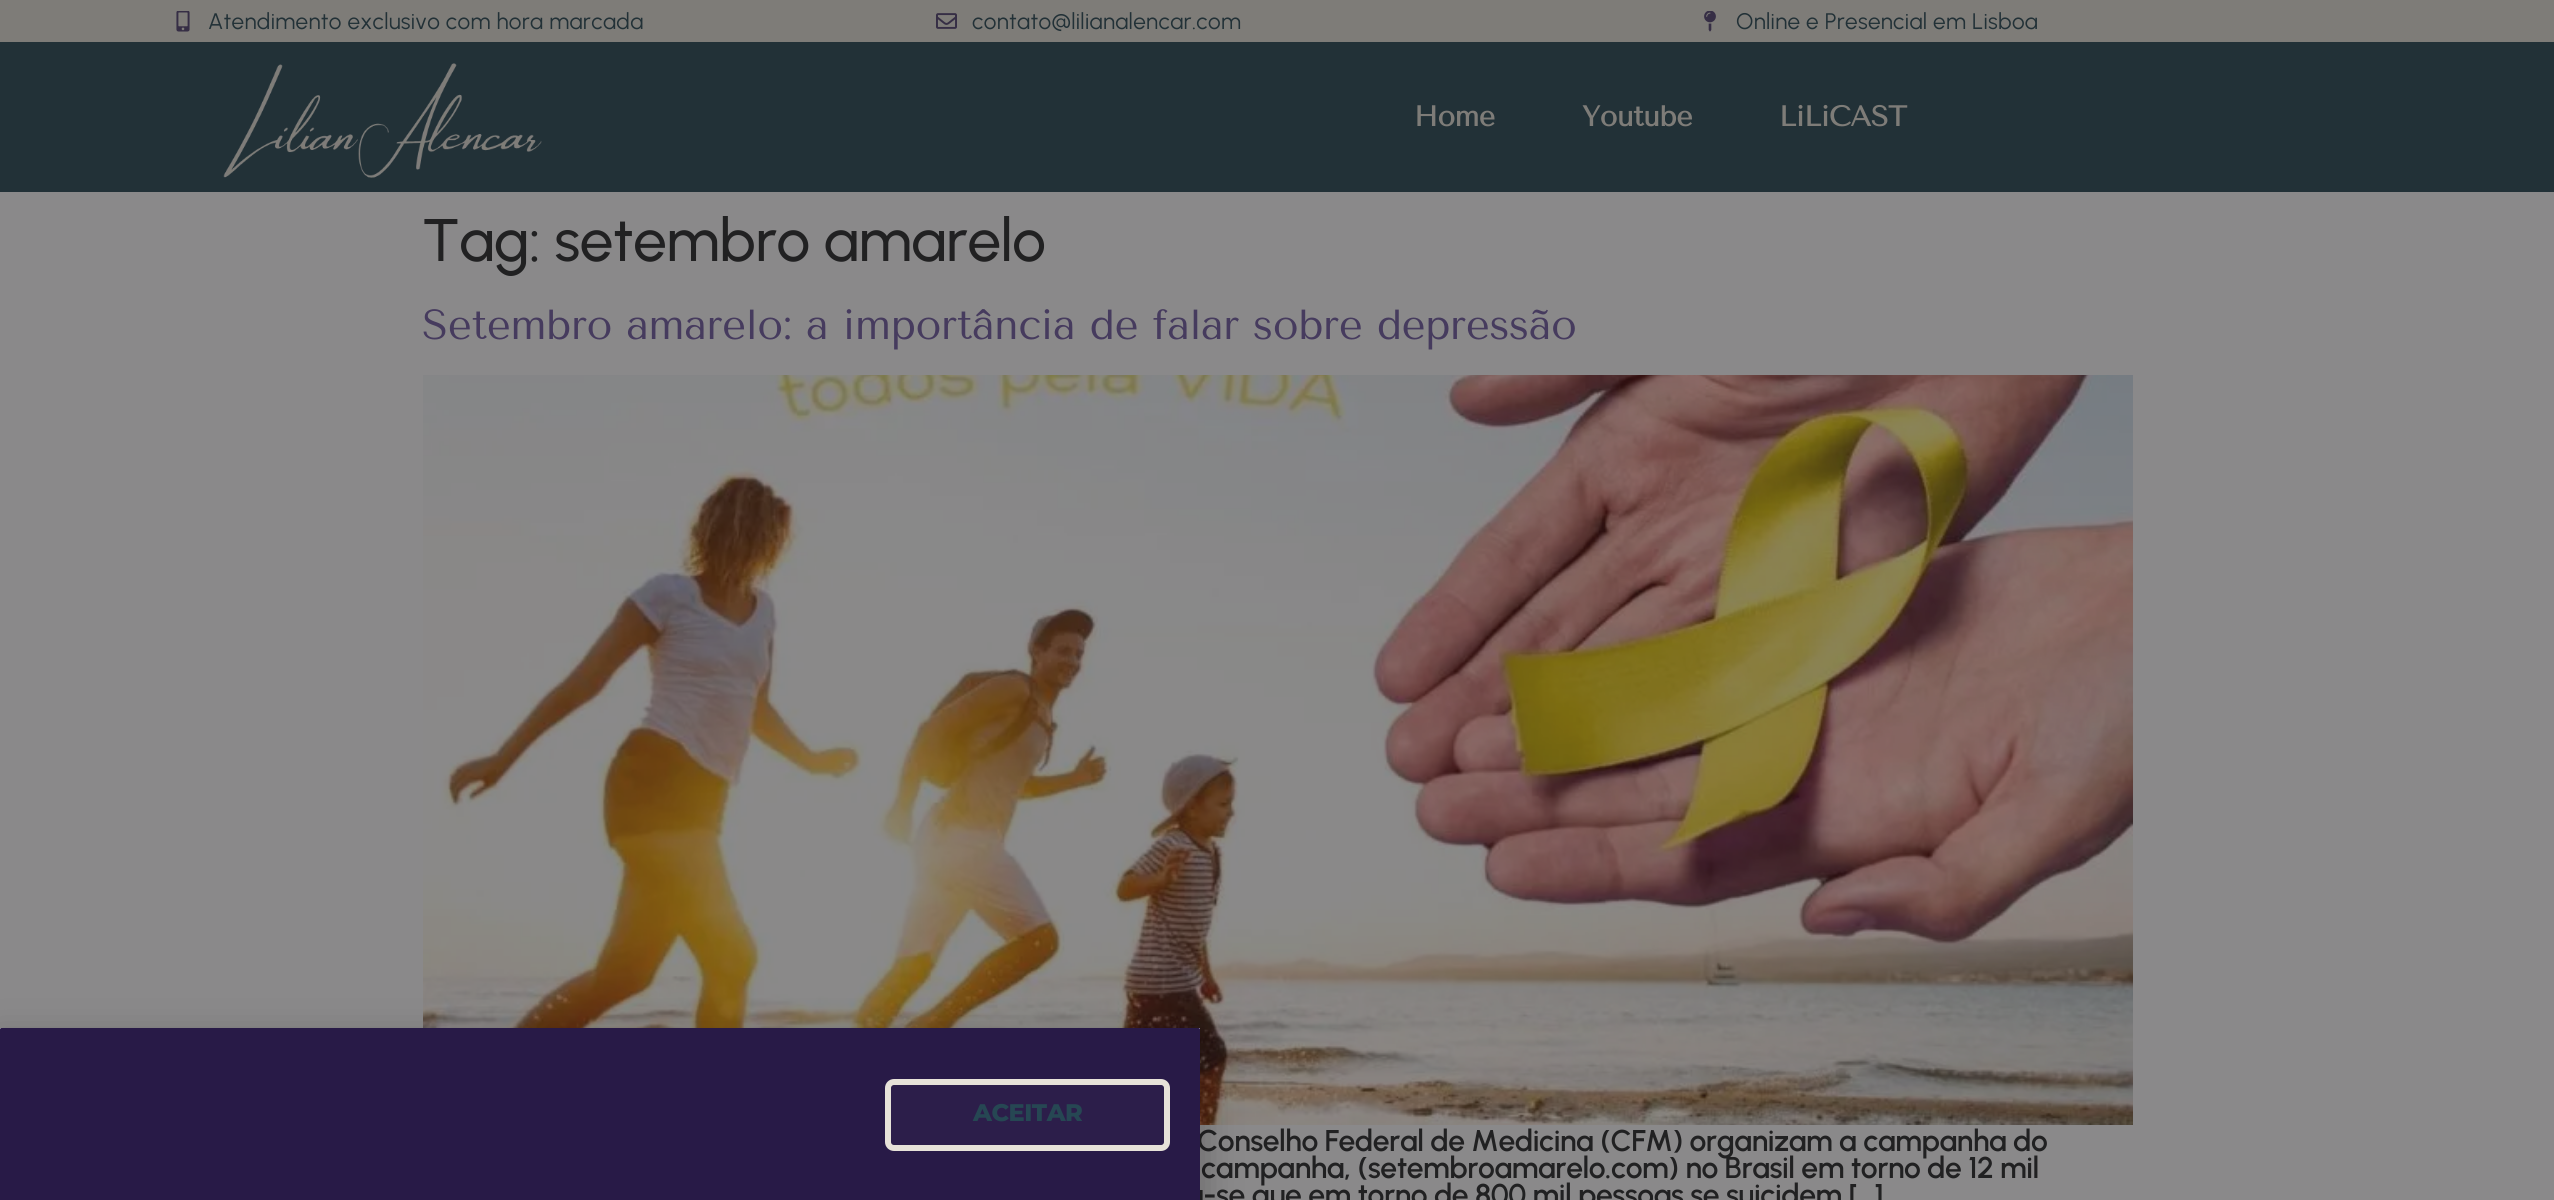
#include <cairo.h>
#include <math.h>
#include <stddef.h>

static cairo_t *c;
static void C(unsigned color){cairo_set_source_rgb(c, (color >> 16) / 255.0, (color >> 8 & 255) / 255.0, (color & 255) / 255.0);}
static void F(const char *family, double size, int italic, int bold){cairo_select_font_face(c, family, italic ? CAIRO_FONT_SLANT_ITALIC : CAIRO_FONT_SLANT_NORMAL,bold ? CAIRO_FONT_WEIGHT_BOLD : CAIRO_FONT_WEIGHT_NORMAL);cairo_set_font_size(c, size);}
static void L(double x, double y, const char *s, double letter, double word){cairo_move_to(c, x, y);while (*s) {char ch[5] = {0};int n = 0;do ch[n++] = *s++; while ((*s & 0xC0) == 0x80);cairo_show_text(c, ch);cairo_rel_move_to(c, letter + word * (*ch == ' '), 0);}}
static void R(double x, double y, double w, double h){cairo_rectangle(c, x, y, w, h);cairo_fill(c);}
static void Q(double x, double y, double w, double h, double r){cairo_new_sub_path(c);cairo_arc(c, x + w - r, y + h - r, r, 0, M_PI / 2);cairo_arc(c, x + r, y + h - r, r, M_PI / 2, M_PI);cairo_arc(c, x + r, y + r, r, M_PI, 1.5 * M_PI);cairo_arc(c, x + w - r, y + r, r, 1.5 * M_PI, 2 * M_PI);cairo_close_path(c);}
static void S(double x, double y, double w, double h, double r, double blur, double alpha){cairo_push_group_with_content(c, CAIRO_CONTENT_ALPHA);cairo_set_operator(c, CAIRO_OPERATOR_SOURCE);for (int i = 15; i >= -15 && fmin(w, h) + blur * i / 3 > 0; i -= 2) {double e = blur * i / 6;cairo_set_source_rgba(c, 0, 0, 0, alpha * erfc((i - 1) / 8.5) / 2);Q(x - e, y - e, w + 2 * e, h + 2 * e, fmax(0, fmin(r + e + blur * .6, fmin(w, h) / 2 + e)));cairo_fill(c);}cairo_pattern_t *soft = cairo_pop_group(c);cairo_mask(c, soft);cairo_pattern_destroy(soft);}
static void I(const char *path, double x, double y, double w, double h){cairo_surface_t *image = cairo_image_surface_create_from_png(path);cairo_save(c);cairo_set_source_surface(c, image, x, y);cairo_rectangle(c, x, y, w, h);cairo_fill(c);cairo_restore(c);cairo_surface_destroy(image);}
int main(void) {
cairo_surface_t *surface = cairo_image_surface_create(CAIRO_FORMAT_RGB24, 2554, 1200);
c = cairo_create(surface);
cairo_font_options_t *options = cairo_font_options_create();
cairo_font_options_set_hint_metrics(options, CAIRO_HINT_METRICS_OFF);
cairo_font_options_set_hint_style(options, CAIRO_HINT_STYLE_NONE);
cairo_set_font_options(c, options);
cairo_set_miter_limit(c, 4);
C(0x8a898a);
cairo_paint(c);
C(0x7e7c78);
R(0,0,2554,42);
I("1.png",176,11,14,21);
F("Urbanist",22.5,0,0);
C(0x223137);
L(208,29,"Atendimento exclusivo com hora marcada",.3,0);
I("2.png",936,13,21,16);
L(972,29,"contato@lilianalencar.com",.3,0);
I("3.png",1704,11,12,21);
L(1736,29,"Online e Presencial em Lisboa",.3,0);
R(0,42,2554,150);
I("4.png",223,63,319,115);
F("Tenor Sans",28.5,0,1);
C(0x7e7c78);
L(1414,126,"Home",-.45,0);
L(1582,126,"Youtube",-.45,0);
L(1779,126,"LiLiCAST",-.45,0);
F("Urbanist Medium",60,0,0);
C(0x212122);
L(422,261,"Tag: setembro amarelo",-.45,0);
F("Tenor Sans",42,0,0);
C(0x463b5e);
L(422,339,"Setembro amarelo: a importância de falar sobre depressão",-.45,0);
I("5.png",423,375,1710,750);
F("Urbanist SemiBold",30,0,0);
C(0x212122);
L(1197,1151,"Conselho Federal de Medicina (CFM) organizam a campanha do",-.45,0);
L(1201,1178,"campanha, (setembroamarelo.com) no Brasil em torno de 12 mil",-.45,0);
L(1186,1205,"a-se que em torno de 800 mil pessoas se suicidem […]",-.45,0);
C(0x000000);
S(-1,1035,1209,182,0,17,.2);
C(0xffffff);
R(0,1028,1200,2);
C(0x281a47);
cairo_new_path(c);
cairo_move_to(c,1.5,1028);
cairo_line_to(c,1198.5,1028);
cairo_curve_to(c,1199.5,1028,1200,1028.5,1200,1029.5);
cairo_line_to(c,1200,1200);
cairo_line_to(c,0,1200);
cairo_line_to(c,0,1029.5);
cairo_curve_to(c,0,1028.5,.5,1028,1.5,1028);
cairo_close_path(c);
cairo_fill(c);
C(0x2c1e4a);
Q(888,1082,279,66,6);
cairo_fill_preserve(c);
C(0xe7e2d9);
cairo_set_line_width(c,6);
cairo_stroke(c);
F("Montserrat ExtraBold",24,0,0);
C(0x264753);
L(973,1121,"ACEITAR",-.45,0);
cairo_surface_write_to_png(surface, "o.png");
cairo_font_options_destroy(options);
cairo_destroy(c);
cairo_surface_destroy(surface);
return 0;
}
